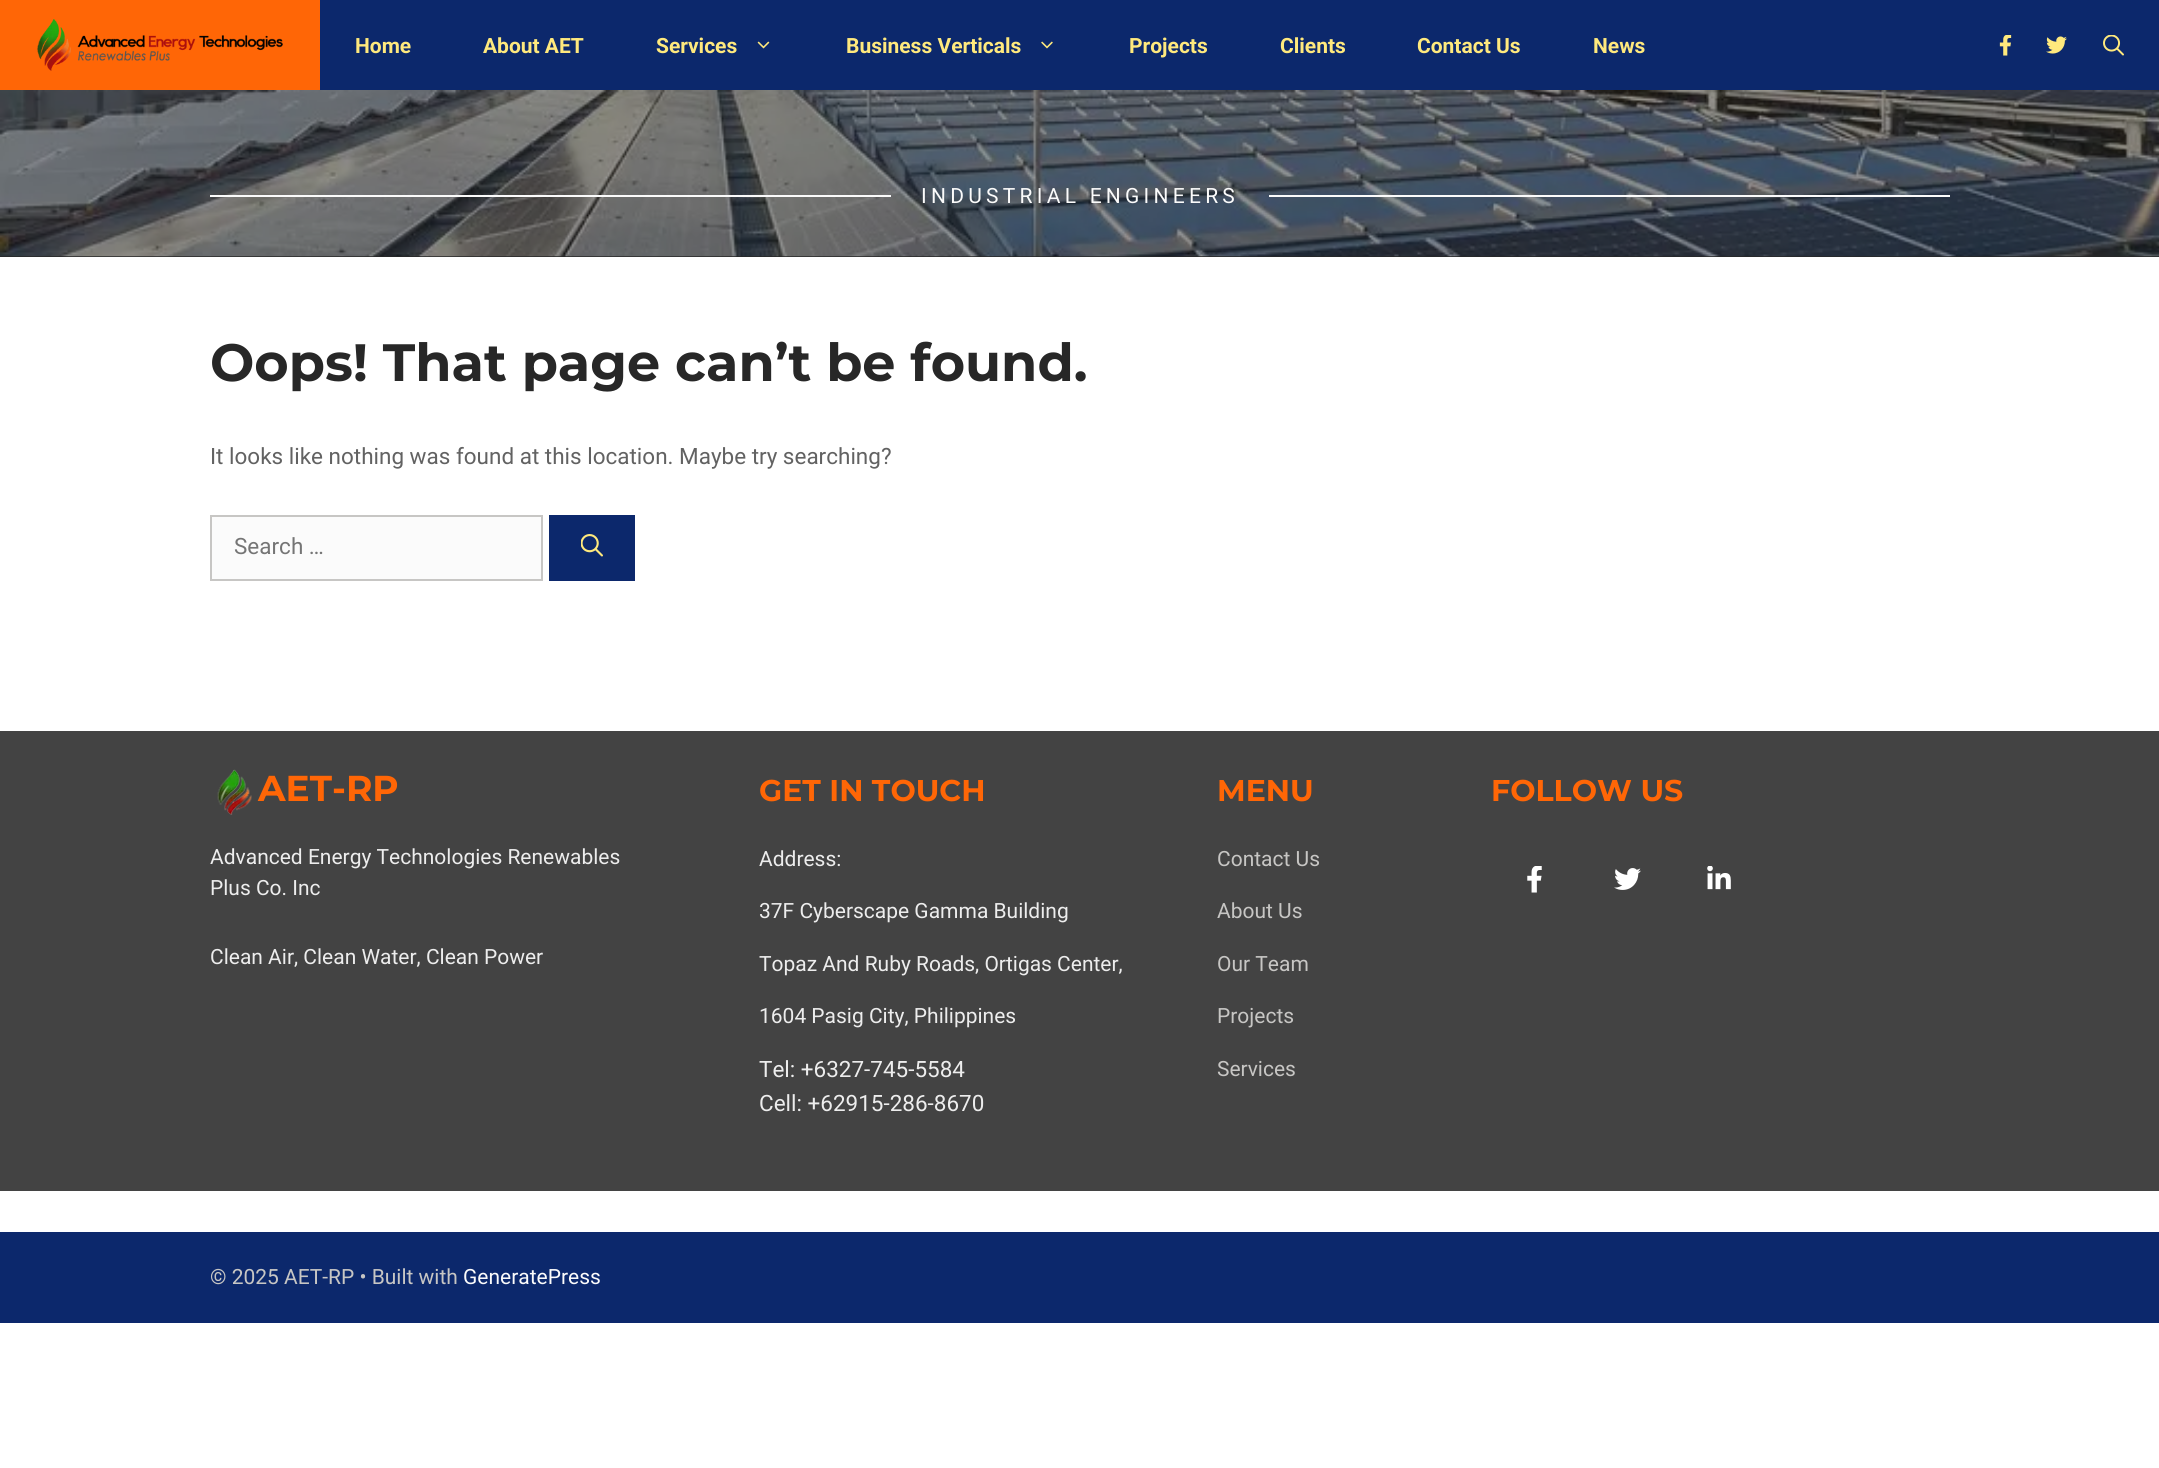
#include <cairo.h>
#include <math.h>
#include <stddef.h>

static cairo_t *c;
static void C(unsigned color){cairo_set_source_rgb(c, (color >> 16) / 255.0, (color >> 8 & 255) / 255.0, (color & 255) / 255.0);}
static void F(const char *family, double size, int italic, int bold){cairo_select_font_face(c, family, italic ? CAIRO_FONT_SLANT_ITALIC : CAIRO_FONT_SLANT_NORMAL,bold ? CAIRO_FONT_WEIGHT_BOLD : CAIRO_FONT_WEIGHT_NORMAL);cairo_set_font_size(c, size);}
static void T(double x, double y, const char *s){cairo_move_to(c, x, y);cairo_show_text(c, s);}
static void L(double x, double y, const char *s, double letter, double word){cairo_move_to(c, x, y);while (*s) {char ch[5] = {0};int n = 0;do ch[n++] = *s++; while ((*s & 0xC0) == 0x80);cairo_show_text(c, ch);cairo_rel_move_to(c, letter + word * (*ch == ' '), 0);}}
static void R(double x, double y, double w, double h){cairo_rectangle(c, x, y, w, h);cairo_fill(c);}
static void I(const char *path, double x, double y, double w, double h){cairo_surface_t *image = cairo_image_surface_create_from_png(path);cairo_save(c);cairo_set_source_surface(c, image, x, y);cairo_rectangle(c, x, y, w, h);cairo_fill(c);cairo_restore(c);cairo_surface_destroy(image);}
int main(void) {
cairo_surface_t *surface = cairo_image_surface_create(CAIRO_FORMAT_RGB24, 2159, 1468);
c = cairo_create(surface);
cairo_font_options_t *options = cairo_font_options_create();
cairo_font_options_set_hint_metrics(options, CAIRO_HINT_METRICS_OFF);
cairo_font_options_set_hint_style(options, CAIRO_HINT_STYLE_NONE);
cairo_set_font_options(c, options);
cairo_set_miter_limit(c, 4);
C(0xffffff);
cairo_paint(c);
C(0x0c286c);
R(320,0,1839,90);
C(0xff6606);
R(0,0,320,90);
I("1.png",37,19,246,52);
F("Roboto",21,0,1);
C(0xffe97d);
T(355,53,"Home");
T(483,53,"About AET");
T(656,53,"Services");
I("2.png",757,41,13,8);
T(846,53,"Business Verticals");
I("3.png",1041,41,12,8);
T(1129,53,"Projects");
T(1280,53,"Clients");
T(1417,53,"Contact Us");
T(1593,53,"News");
I("4.png",1999,35,13,21);
I("5.png",2046,36,21,18);
I("6.png",2103,35,21,21);
C(0x272727);
R(0,90,2159,167);
I("7.png",0,90,2159,167);
C(0xfbfbfb);
R(210,195,681,2);
F("Roboto",21,0,0);
L(921,203,"INDUSTRIAL ENGINEERS",4.25,0);
R(1269,195,681,2);
F("Montserrat Thin",52.5,0,0);
C(0x272727);
T(210,381,"Oops! That page can’t be found.");
F("Roboto",22.5,0,0);
C(0x626262);
T(210,464,"It looks like nothing was found at this location. Maybe try searching?");
C(0xfbfbfb);
cairo_rectangle(c,211,516,331,64);
cairo_fill_preserve(c);
C(0xc7c6c4);
cairo_stroke(c);
C(0x757575);
T(234,554,"Search …");
C(0x0c286c);
R(549,515,86,66);
I("8.png",581,534,22,23);
C(0x434343);
R(0,731,2159,460);
I("9.png",217,769,35,46);
F("Montserrat Thin",36,0,0);
C(0xff6606);
T(258,801,"AET-RP");
F("Roboto",21,0,0);
C(0xededed);
T(210,864,"Advanced Energy Technologies Renewables");
T(210,895,"Plus Co. Inc");
T(210,964,"Clean Air, Clean Water, Clean Power");
F("Montserrat Thin",30,0,0);
C(0xff6606);
T(759,801,"GET IN TOUCH");
F("Roboto",21,0,0);
C(0xededed);
T(759,866,"Address:");
T(759,918,"37F Cyberscape Gamma Building");
T(759,971,"Topaz And Ruby Roads, Ortigas Center,");
T(759,1023,"1604 Pasig City, Philippines");
F("Roboto",22.5,0,0);
T(759,1077,"Tel: +6327-745-5584");
T(759,1111,"Cell: +62915-286-8670");
F("Montserrat Thin",30,0,0);
C(0xff6606);
T(1217,801,"MENU");
F("Roboto",21,0,0);
C(0xc7c6c4);
T(1217,866,"Contact Us");
T(1217,918,"About Us");
T(1217,971,"Our Team");
T(1217,1023,"Projects");
T(1217,1076,"Services");
F("Montserrat Thin",30,0,0);
C(0xff6606);
T(1491,801,"FOLLOW US");
I("10.png",1527,866,15,27);
I("11.png",1614,868,27,22);
I("12.png",1707,866,24,24);
C(0x0c286c);
R(0,1232,2159,91);
F("Roboto",21,0,0);
C(0xc7c6c4);
T(210,1284,"© 2025 AET-RP • Built with");
C(0xfbfbfb);
T(463,1284,"GeneratePress");
cairo_surface_write_to_png(surface, "o.png");
cairo_font_options_destroy(options);
cairo_destroy(c);
cairo_surface_destroy(surface);
return 0;
}
